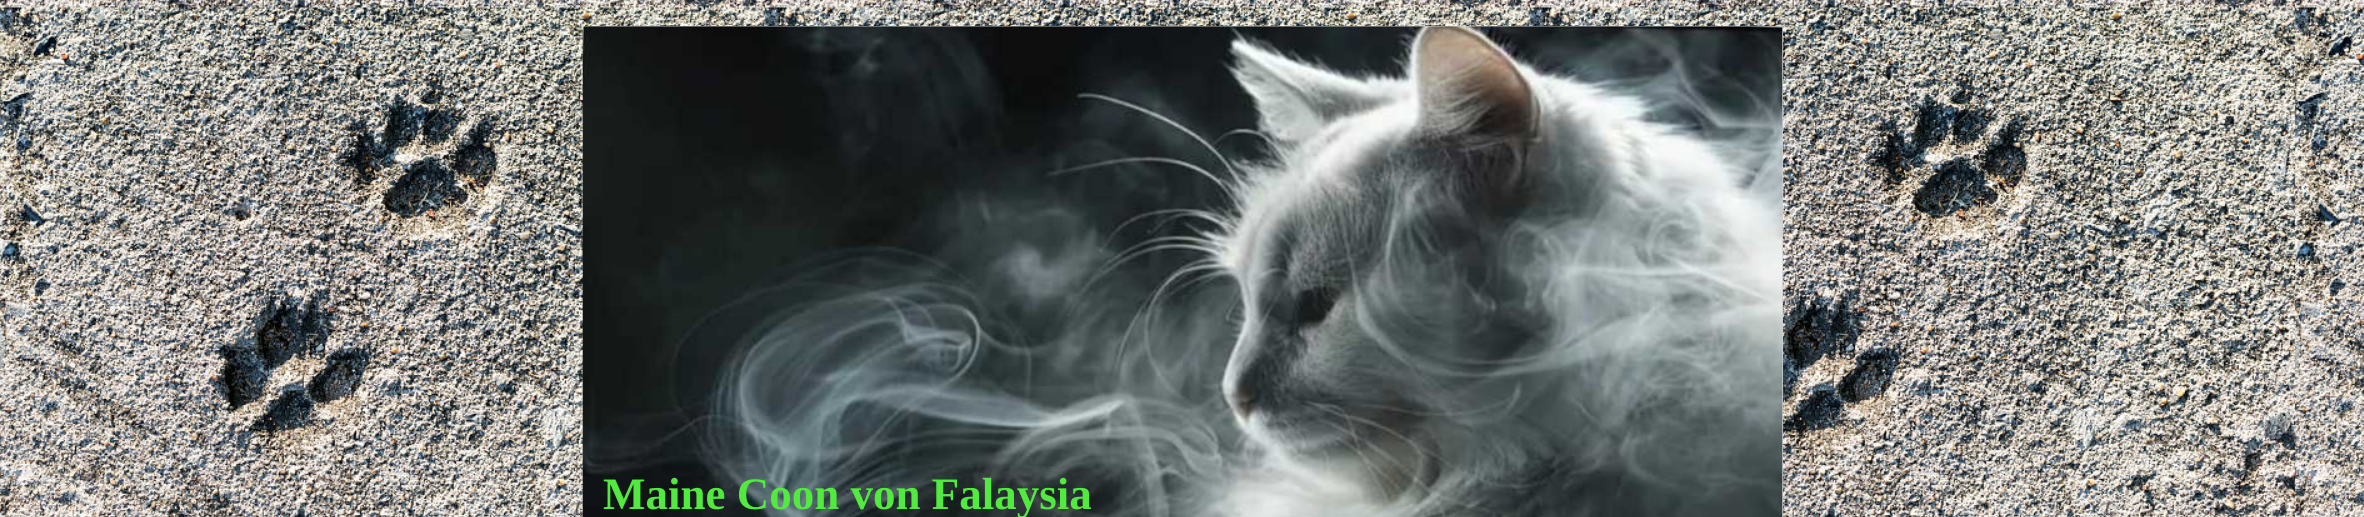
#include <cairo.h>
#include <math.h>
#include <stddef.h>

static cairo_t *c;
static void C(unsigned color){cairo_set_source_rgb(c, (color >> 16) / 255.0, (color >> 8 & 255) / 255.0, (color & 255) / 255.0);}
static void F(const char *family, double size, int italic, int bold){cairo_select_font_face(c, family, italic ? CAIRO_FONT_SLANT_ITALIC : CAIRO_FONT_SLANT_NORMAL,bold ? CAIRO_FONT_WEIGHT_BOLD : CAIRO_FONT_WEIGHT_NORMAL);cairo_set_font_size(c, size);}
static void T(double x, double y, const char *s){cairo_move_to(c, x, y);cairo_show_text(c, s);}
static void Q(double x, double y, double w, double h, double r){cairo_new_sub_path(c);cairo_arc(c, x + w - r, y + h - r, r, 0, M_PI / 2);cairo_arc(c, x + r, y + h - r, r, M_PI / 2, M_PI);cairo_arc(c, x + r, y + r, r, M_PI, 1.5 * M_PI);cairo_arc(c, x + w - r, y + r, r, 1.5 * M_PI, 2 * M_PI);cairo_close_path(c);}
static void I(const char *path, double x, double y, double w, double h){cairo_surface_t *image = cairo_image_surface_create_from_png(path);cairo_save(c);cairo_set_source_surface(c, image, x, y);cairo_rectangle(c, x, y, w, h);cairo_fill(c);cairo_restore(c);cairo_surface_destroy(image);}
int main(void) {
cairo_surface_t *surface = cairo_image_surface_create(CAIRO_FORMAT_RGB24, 2364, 517);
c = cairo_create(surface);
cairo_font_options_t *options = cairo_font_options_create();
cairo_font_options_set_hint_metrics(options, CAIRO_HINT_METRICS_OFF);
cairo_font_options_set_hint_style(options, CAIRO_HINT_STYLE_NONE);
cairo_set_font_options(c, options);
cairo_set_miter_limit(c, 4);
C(0xffffff);
cairo_paint(c);
I("1.png",0,0,2364,517);
C(0xcccccc);
Q(583,26,1200,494,2.5);
cairo_fill(c);
I("2.png",582,26,1201,491);
F("Liberation Serif",45,0,1);
C(0x52ea3f);
T(603,509,"Maine Coon von Falaysia");
cairo_surface_write_to_png(surface, "o.png");
cairo_font_options_destroy(options);
cairo_destroy(c);
cairo_surface_destroy(surface);
return 0;
}
